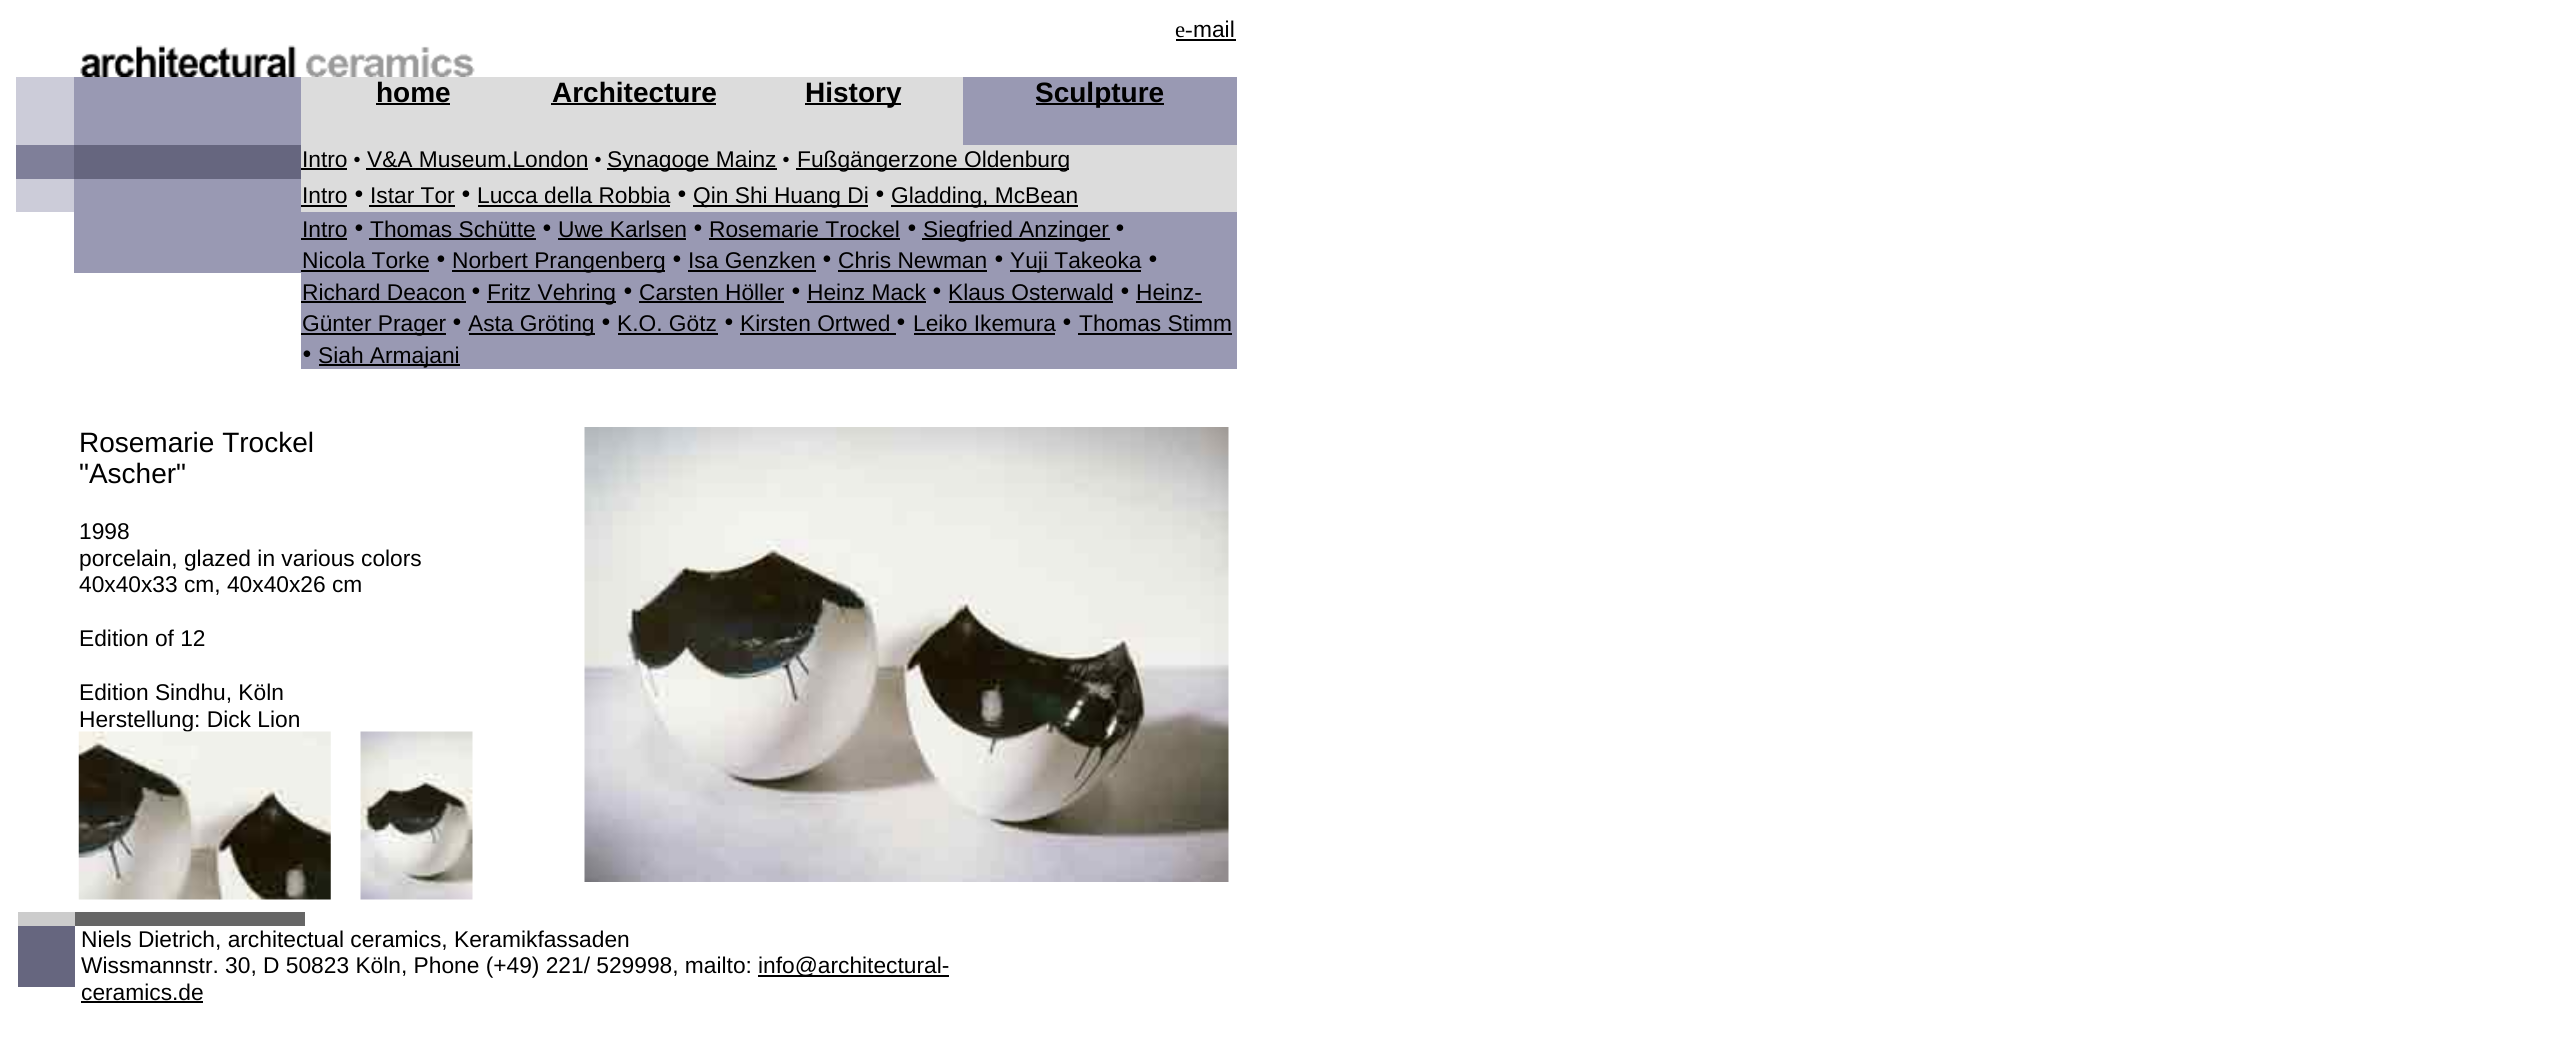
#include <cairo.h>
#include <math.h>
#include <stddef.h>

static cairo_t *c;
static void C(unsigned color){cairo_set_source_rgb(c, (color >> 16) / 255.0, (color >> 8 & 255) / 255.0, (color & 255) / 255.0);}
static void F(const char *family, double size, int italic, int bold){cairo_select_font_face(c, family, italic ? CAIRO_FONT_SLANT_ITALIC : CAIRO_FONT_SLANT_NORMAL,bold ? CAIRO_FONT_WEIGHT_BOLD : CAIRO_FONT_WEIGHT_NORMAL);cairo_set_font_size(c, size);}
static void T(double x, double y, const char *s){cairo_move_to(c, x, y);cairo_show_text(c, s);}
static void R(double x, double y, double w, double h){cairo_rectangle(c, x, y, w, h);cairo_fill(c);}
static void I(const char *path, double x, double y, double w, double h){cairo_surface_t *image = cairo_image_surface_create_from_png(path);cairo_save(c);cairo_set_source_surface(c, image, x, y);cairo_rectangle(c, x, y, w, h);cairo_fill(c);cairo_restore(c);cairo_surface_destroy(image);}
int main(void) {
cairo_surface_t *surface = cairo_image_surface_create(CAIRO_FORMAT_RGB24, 2557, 1040);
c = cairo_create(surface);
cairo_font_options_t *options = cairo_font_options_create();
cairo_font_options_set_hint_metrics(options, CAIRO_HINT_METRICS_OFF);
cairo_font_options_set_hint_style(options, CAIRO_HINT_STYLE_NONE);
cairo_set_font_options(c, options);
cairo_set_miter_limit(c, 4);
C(0xffffff);
cairo_paint(c);
F("Liberation Serif",22.75,0,0);
C(0x000000);
T(1175,37,"e-");
R(1176,39,60,2);
F("Liberation Sans",22.75,0,0);
T(1193,37,"mail");
I("1.png",80,45,395,32);
C(0xccccd9);
R(16,77,58,68);
C(0x9999b3);
R(74,77,227,68);
C(0xdcdcdc);
R(301,77,662,68);
F("Liberation Sans",28,0,1);
C(0x000000);
T(376,102,"home");
R(376,103,74,2);
T(552,102,"Architecture");
R(551,103,165,2);
R(805,103,96,2);
T(805,102,"History");
C(0x9999b3);
R(963,77,274,68);
C(0x000000);
R(1036,103,128,2);
T(1035,102,"Sculpture");
C(0x7f7f99);
R(16,145,58,34);
C(0x66667f);
R(74,145,227,34);
C(0xdcdcdc);
R(301,145,936,67);
F("Liberation Sans",22.75,0,0);
C(0x000000);
T(302,167,"Intro");
R(301,168,46,2);
F("Liberation Serif",22.75,0,0);
T(353,167,"•");
R(366,168,222,2);
F("Liberation Sans",22.75,0,0);
T(367,167,"V&A Museum,London");
F("Liberation Serif",22.75,0,0);
T(594,167,"•");
R(607,168,170,2);
F("Liberation Sans",22.75,0,0);
T(607,167,"Synagoge Mainz");
F("Liberation Serif",22.75,0,0);
T(782,167,"•");
R(796,168,273,2);
F("Liberation Sans",22.75,0,0);
T(797,167,"Fußgängerzone Oldenburg");
C(0xccccd9);
R(16,179,58,33);
C(0x9999b3);
R(74,179,227,94);
C(0x000000);
T(302,203,"Intro");
R(301,205,46,2);
F("Liberation Serif",28,0,0);
T(354,203,"•");
F("Liberation Sans",22.75,0,0);
T(370,203,"Istar Tor");
R(369,205,86,2);
F("Liberation Serif",28,0,0);
T(461,203,"•");
F("Liberation Sans",22.75,0,0);
T(477,203,"Lucca della Robbia");
R(478,205,192,2);
F("Liberation Serif",28,0,0);
T(677,203,"•");
R(693,205,175,2);
F("Liberation Sans",22.75,0,0);
T(693,203,"Qin Shi Huang Di");
F("Liberation Serif",28,0,0);
T(875,203,"•");
R(891,205,187,2);
F("Liberation Sans",22.75,0,0);
T(891,203,"Gladding, McBean");
C(0x9999b3);
R(301,212,936,157);
C(0x000000);
T(302,237,"Intro");
R(301,238,46,2);
F("Liberation Serif",28,0,0);
T(354,237,"•");
F("Liberation Sans",22.75,0,0);
T(370,237,"Thomas Schütte");
R(369,238,167,2);
F("Liberation Serif",28,0,0);
T(542,237,"•");
F("Liberation Sans",22.75,0,0);
T(558,237,"Uwe Karlsen");
R(558,238,128,2);
F("Liberation Serif",28,0,0);
T(693,237,"•");
F("Liberation Sans",22.75,0,0);
T(709,237,"Rosemarie Trockel");
R(709,238,191,2);
F("Liberation Serif",28,0,0);
T(907,237,"•");
R(922,238,188,2);
F("Liberation Sans",22.75,0,0);
T(923,237,"Siegfried Anzinger");
F("Liberation Serif",28,0,0);
T(1115,237,"•");
F("Liberation Sans",22.75,0,0);
T(302,268,"Nicola Torke");
R(301,270,128,2);
F("Liberation Serif",28,0,0);
T(436,268,"•");
R(452,270,213,2);
F("Liberation Sans",22.75,0,0);
T(452,268,"Norbert Prangenberg");
F("Liberation Serif",28,0,0);
T(672,268,"•");
F("Liberation Sans",22.75,0,0);
T(688,268,"Isa Genzken");
R(688,270,128,2);
F("Liberation Serif",28,0,0);
T(822,268,"•");
F("Liberation Sans",22.75,0,0);
T(838,268,"Chris Newman");
R(838,270,149,2);
F("Liberation Serif",28,0,0);
T(994,268,"•");
R(1010,270,131,2);
F("Liberation Sans",22.75,0,0);
T(1010,268,"Yuji Takeoka");
F("Liberation Serif",28,0,0);
T(1148,268,"•");
F("Liberation Sans",22.75,0,0);
T(302,300,"Richard Deacon");
R(301,301,165,2);
F("Liberation Serif",28,0,0);
T(471,300,"•");
R(487,301,129,2);
F("Liberation Sans",22.75,0,0);
T(487,300,"Fritz Vehring");
F("Liberation Serif",28,0,0);
T(623,300,"•");
F("Liberation Sans",22.75,0,0);
T(639,300,"Carsten Höller");
R(639,301,145,2);
F("Liberation Serif",28,0,0);
T(791,300,"•");
F("Liberation Sans",22.75,0,0);
T(807,300,"Heinz Mack");
R(807,301,119,2);
F("Liberation Serif",28,0,0);
T(932,300,"•");
F("Liberation Sans",22.75,0,0);
T(948,300,"Klaus Osterwald");
R(949,301,164,2);
F("Liberation Serif",28,0,0);
T(1120,300,"•");
F("Liberation Sans",22.75,0,0);
T(1136,300,"Heinz-");
R(1136,301,66,2);
R(301,333,145,2);
T(302,331,"Günter Prager");
F("Liberation Serif",28,0,0);
T(452,331,"•");
R(469,333,126,2);
F("Liberation Sans",22.75,0,0);
T(468,331,"Asta Gröting");
F("Liberation Serif",28,0,0);
T(601,331,"•");
F("Liberation Sans",22.75,0,0);
T(617,331,"K.O. Götz");
R(618,333,100,2);
F("Liberation Serif",28,0,0);
T(724,331,"•");
F("Liberation Sans",22.75,0,0);
T(740,331,"Kirsten Ortwed");
R(740,333,156,2);
F("Liberation Serif",28,0,0);
T(896,331,"•");
F("Liberation Sans",22.75,0,0);
T(913,331,"Leiko Ikemura");
R(914,333,141,2);
F("Liberation Serif",28,0,0);
T(1062,331,"•");
F("Liberation Sans",22.75,0,0);
T(1079,331,"Thomas Stimm");
R(1078,333,154,2);
F("Liberation Serif",28,0,0);
T(302,363,"•");
R(319,364,141,2);
F("Liberation Sans",22.75,0,0);
T(318,363,"Siah Armajani");
F("Liberation Sans",28,0,0);
T(79,452,"Rosemarie Trockel");
T(79,483,"\"Ascher\"");
F("Liberation Sans",22.75,0,0);
T(79,539,"1998");
T(79,566,"porcelain, glazed in various colors");
T(79,592,"40x40x33 cm, 40x40x26 cm");
T(79,646,"Edition of 12");
T(79,700,"Edition Sindhu, Köln");
T(79,727,"Herstellung: Dick Lion");
I("2.png",584,427,645,455);
I("3.png",78,731,253,169);
I("4.png",360,731,113,169);
C(0xcccccc);
R(18,912,57,14);
C(0x666666);
R(75,912,230,14);
C(0x66667f);
R(18,926,57,61);
C(0x000000);
T(81,947,"Niels Dietrich, architectual ceramics, Keramikfassaden");
T(81,973,"Wissmannstr. 30, D 50823 Köln, Phone (+49) 221/ 529998, mailto:");
R(758,975,191,2);
T(758,973,"info@architectural-");
T(81,1000,"ceramics.de");
R(81,1001,122,2);
cairo_surface_write_to_png(surface, "o.png");
cairo_font_options_destroy(options);
cairo_destroy(c);
cairo_surface_destroy(surface);
return 0;
}
